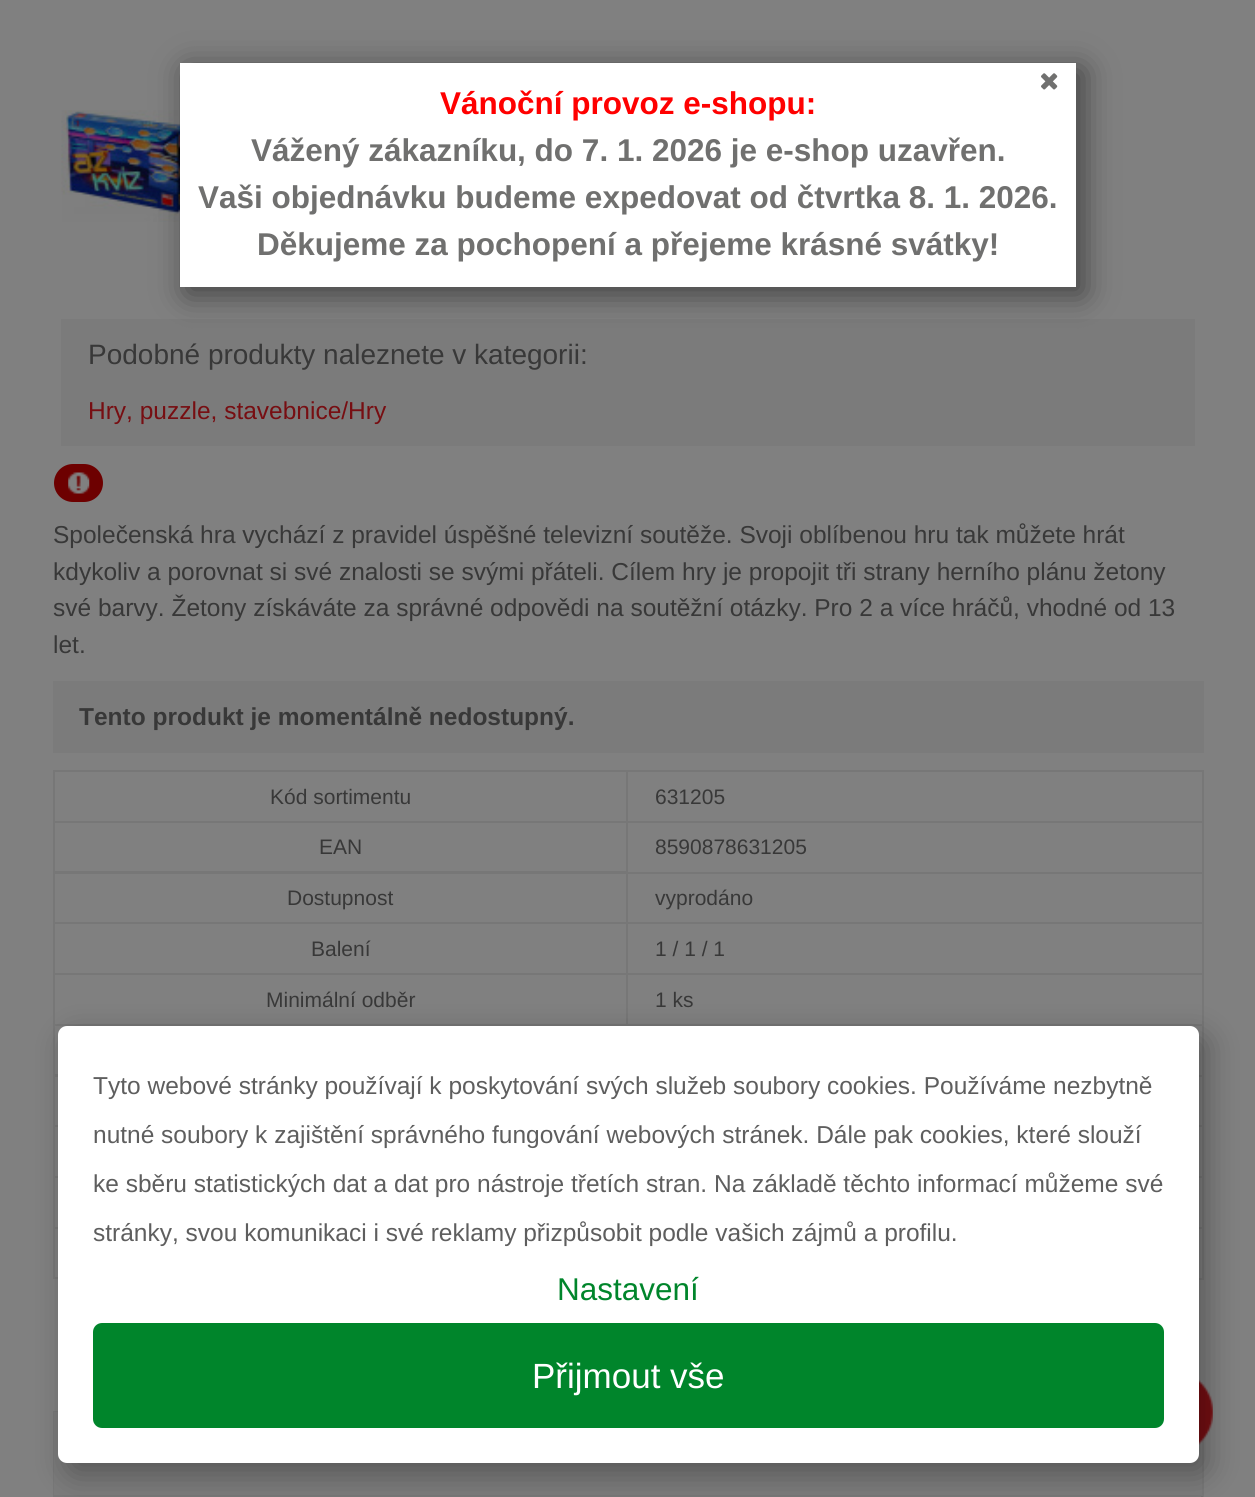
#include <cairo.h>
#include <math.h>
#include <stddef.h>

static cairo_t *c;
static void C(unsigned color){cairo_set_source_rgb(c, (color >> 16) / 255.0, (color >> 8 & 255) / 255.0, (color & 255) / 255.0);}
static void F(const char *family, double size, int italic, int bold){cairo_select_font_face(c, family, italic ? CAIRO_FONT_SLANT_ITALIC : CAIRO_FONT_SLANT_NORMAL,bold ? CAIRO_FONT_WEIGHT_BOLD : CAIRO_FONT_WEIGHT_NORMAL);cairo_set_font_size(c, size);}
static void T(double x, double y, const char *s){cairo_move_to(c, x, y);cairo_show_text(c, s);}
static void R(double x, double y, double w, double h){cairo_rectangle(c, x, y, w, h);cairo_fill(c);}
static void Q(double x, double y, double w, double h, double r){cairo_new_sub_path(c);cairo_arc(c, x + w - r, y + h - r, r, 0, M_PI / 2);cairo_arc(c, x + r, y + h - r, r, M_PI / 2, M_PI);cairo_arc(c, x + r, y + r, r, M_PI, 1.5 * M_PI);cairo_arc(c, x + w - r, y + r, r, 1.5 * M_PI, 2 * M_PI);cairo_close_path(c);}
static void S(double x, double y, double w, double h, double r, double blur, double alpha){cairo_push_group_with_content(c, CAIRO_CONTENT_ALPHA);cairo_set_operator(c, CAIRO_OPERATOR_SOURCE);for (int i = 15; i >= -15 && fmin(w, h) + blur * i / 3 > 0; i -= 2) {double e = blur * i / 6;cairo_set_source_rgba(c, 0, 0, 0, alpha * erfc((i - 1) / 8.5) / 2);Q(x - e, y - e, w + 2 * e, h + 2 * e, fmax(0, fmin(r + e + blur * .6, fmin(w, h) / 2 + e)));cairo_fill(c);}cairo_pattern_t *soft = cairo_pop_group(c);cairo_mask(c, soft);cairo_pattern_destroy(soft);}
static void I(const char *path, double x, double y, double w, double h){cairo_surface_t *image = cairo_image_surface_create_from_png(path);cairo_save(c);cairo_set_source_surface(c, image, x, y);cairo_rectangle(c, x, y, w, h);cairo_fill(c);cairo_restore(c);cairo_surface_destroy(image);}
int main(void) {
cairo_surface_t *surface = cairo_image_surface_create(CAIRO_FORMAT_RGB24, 1255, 1497);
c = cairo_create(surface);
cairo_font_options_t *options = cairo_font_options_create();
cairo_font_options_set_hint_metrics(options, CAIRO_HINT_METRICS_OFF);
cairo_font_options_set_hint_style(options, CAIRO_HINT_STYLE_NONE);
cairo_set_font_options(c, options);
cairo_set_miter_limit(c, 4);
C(0x808080);
cairo_paint(c);
I("2.png",61,110,119,112);
C(0x7b7b7b);
R(61,319,1134,127);
C(0x000000);
S(187,70,896,224,0,16,.5);
C(0xffffff);
R(180,63,896,224);
I("1.png",1041,73,17,17);
F("Liberation Sans",31.5,0,1);
C(0xff0000);
T(440,114,"Vánoční provoz e-shopu:");
C(0x70706f);
T(251,161,"Vážený zákazníku, do 7. 1. 2026 je e-shop uzavřen.");
T(198,208,"Vaši objednávku budeme expedovat od čtvrtka 8. 1. 2026.");
T(257,255,"Děkujeme za pochopení a přejeme krásné svátky!");
F("Liberation Sans",28,0,0);
C(0x383838);
T(88,364,"Podobné produkty naleznete v kategorii:");
F("Liberation Sans",24.5,0,0);
C(0x770e12);
T(88,419,"Hry, puzzle, stavebnice/Hry");
C(0x6d0000);
Q(54,464,49,38,19);
cairo_fill(c);
I("3.png",68,472,22,22);
C(0x383838);
T(53,543,"Společenská hra vychází z pravidel úspěšné televizní soutěže. Svoji oblíbenou hru tak můžete hrát");
T(53,580,"kdykoliv a porovnat si své znalosti se svými přáteli. Cílem hry je propojit tři strany herního plánu žetony");
T(53,616,"své barvy. Žetony získáváte za správné odpovědi na soutěžní otázky. Pro 2 a více hráčů, vhodné od 13");
T(53,653,"let.");
C(0x7b7b7b);
R(53,681,1151,72);
F("Liberation Sans",24.5,0,1);
C(0x383838);
T(79,725,"Tento produkt je momentálně nedostupný.");
cairo_rectangle(c,54,771,573,51);
C(0x777777);
cairo_stroke(c);
F("Liberation Sans",21,0,0);
C(0x383838);
T(270,804,"Kód sortimentu");
C(0x777777);
R(628,770,576,2);
R(1202,770,2,53);
R(628,821,576,2);
C(0x383838);
T(655,804,"631205");
cairo_rectangle(c,54,822,573,50);
C(0x777777);
cairo_stroke(c);
C(0x383838);
T(319,854,"EAN");
C(0x777777);
R(1202,821,2,52);
R(628,872,576,2);
C(0x383838);
T(655,854,"8590878631205");
cairo_rectangle(c,54,873,573,50);
C(0x777777);
cairo_stroke(c);
C(0x383838);
T(287,905,"Dostupnost");
C(0x777777);
R(1202,872,2,52);
R(628,922,576,2);
C(0x383838);
T(655,905,"vyprodáno");
cairo_rectangle(c,54,923,573,51);
C(0x777777);
cairo_stroke(c);
C(0x383838);
T(311,956,"Balení");
C(0x777777);
R(1202,922,2,53);
R(628,973,576,2);
C(0x383838);
T(655,956,"1 / 1 / 1");
cairo_rectangle(c,54,974,573,51);
C(0x777777);
cairo_stroke(c);
C(0x383838);
T(266,1007,"Minimální odběr");
C(0x777777);
R(1202,973,2,53);
R(628,1024,576,2);
C(0x383838);
T(655,1007,"1 ks");
cairo_rectangle(c,54,1025,573,50);
C(0x777777);
cairo_stroke(c);
R(1202,1024,2,52);
R(1199,1075,5,2);
cairo_rectangle(c,54,1076,573,50);
cairo_stroke(c);
R(1202,1075,2,52);
R(1199,1125,5,2);
cairo_rectangle(c,54,1126,573,51);
cairo_stroke(c);
R(1202,1125,2,53);
R(1199,1176,5,2);
cairo_rectangle(c,54,1177,573,51);
cairo_stroke(c);
R(1202,1176,2,53);
R(1199,1227,5,2);
cairo_rectangle(c,54,1228,573,50);
cairo_stroke(c);
R(1202,1227,2,52);
R(1199,1278,5,2);
cairo_rectangle(c,54,1412,1149,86);
cairo_stroke(c);
C(0x7b7b7b);
R(54,1412,1148,83);
C(0x777777);
R(54,1495,1148,2);
C(0x6f6f6f);
R(1201,1496,2,1);
I("4.png",1199,1379,14,66);
C(0x000000);
S(67,1036,1141,438,9,15,.3);
C(0xffffff);
Q(58,1026,1141,437,9);
cairo_fill(c);
F("Liberation Sans",24.5,0,0);
C(0x5e5e5e);
T(93,1094,"Tyto webové stránky používají k poskytování svých služeb soubory cookies. Používáme nezbytně");
T(93,1143,"nutné soubory k zajištění správného fungování webových stránek. Dále pak cookies, které slouží");
T(93,1192,"ke sběru statistických dat a dat pro nástroje třetích stran. Na základě těchto informací můžeme své");
T(93,1241,"stránky, svou komunikaci i své reklamy přizpůsobit podle vašich zájmů a profilu.");
F("Liberation Sans",31.5,0,0);
C(0x00852b);
T(557,1300,"Nastavení");
Q(93,1323,1071,105,9);
cairo_fill(c);
F("Liberation Sans",35,0,0);
C(0xffffff);
T(532,1388,"Přijmout vše");
cairo_surface_write_to_png(surface, "o.png");
cairo_font_options_destroy(options);
cairo_destroy(c);
cairo_surface_destroy(surface);
return 0;
}
